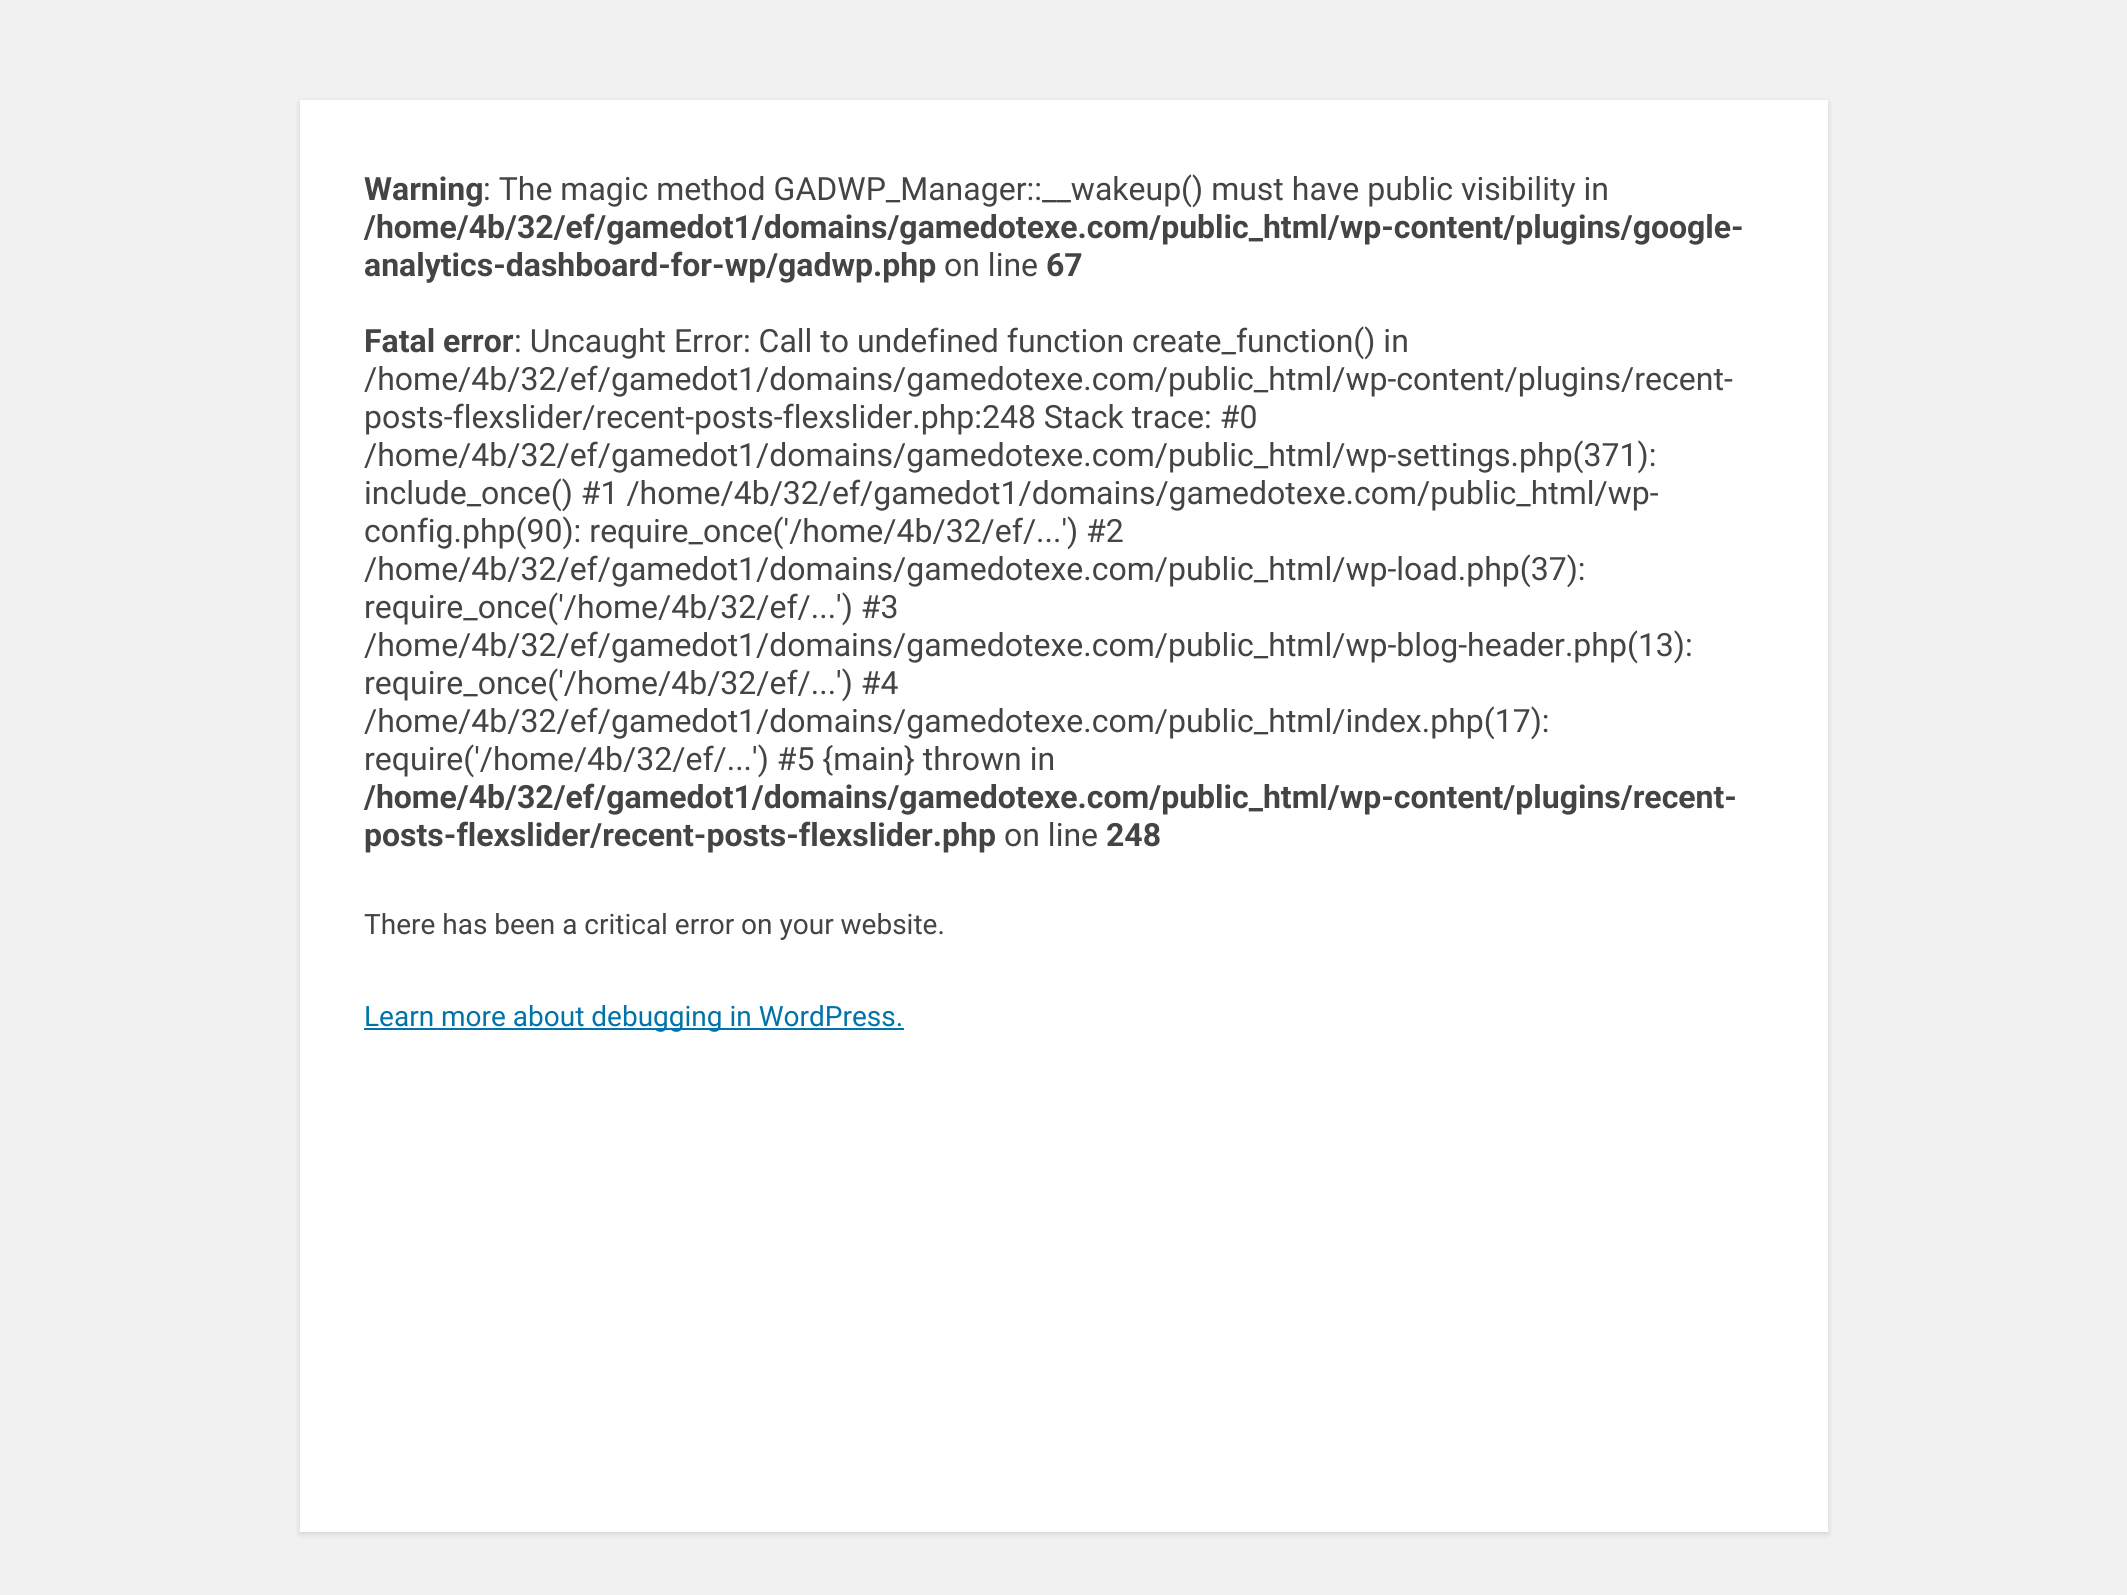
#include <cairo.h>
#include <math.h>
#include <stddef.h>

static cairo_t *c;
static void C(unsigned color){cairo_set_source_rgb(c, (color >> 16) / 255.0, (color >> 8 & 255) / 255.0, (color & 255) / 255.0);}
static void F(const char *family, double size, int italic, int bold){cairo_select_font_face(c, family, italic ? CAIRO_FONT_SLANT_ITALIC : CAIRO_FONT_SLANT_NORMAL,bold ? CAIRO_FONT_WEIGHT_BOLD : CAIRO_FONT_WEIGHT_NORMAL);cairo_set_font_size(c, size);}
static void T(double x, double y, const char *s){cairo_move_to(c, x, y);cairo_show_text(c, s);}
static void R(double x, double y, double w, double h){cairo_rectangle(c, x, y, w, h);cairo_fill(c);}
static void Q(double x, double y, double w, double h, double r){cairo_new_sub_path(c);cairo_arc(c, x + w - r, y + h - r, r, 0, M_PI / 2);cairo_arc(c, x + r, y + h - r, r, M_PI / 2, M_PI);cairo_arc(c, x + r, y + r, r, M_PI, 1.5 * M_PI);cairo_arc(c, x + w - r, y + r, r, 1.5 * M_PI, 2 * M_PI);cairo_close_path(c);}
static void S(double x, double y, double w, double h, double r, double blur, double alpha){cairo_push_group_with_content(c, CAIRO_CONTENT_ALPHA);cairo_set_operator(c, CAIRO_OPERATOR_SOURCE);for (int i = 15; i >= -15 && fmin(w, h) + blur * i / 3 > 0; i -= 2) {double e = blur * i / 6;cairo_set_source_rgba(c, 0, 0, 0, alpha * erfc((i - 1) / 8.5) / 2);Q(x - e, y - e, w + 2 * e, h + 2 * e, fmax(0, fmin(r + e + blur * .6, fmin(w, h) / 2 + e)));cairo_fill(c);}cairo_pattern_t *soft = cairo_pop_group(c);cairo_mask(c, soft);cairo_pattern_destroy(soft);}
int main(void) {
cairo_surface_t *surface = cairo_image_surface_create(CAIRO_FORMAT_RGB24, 2127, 1595);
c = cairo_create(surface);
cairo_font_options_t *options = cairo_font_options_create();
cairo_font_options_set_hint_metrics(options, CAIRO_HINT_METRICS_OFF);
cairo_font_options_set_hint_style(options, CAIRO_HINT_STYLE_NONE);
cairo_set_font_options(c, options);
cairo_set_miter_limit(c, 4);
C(0xf1f1f1);
cairo_paint(c);
C(0x000000);
S(300,102,1528,1432,0,3,.13);
C(0xffffff);
R(300,100,1528,1432);
F("Roboto",32,0,1);
C(0x444444);
T(364,200,"Warning");
F("Roboto",32,0,0);
T(483,200,": The magic method GADWP_Manager::__wakeup() must have public visibility in");
F("Roboto",32,0,1);
T(364,238,"/home/4b/32/ef/gamedot1/domains/gamedotexe.com/public_html/wp-content/plugins/google-");
T(364,276,"analytics-dashboard-for-wp/gadwp.php");
F("Roboto",32,0,0);
T(944,276,"on line");
F("Roboto",32,0,1);
T(1046,276,"67");
T(364,352,"Fatal error");
F("Roboto",32,0,0);
T(514,352,": Uncaught Error: Call to undefined function create_function() in");
T(364,390,"/home/4b/32/ef/gamedot1/domains/gamedotexe.com/public_html/wp-content/plugins/recent-");
T(364,428,"posts-flexslider/recent-posts-flexslider.php:248 Stack trace: #0");
T(364,466,"/home/4b/32/ef/gamedot1/domains/gamedotexe.com/public_html/wp-settings.php(371):");
T(364,504,"include_once() #1 /home/4b/32/ef/gamedot1/domains/gamedotexe.com/public_html/wp-");
T(364,542,"config.php(90): require_once('/home/4b/32/ef/...') #2");
T(364,580,"/home/4b/32/ef/gamedot1/domains/gamedotexe.com/public_html/wp-load.php(37):");
T(364,618,"require_once('/home/4b/32/ef/...') #3");
T(364,656,"/home/4b/32/ef/gamedot1/domains/gamedotexe.com/public_html/wp-blog-header.php(13):");
T(364,694,"require_once('/home/4b/32/ef/...') #4");
T(364,732,"/home/4b/32/ef/gamedot1/domains/gamedotexe.com/public_html/index.php(17):");
T(364,770,"require('/home/4b/32/ef/...') #5 {main} thrown in");
F("Roboto",32,0,1);
T(364,808,"/home/4b/32/ef/gamedot1/domains/gamedotexe.com/public_html/wp-content/plugins/recent-");
T(364,846,"posts-flexslider/recent-posts-flexslider.php");
F("Roboto",32,0,0);
T(1004,846,"on line");
F("Roboto",32,0,1);
T(1106,846,"248");
F("Roboto",28,0,0);
T(364,934,"There has been a critical error on your website.");
C(0x0073aa);
R(364,1028,540,2);
T(364,1026,"Learn more about debugging in WordPress.");
cairo_surface_write_to_png(surface, "o.png");
cairo_font_options_destroy(options);
cairo_destroy(c);
cairo_surface_destroy(surface);
return 0;
}
